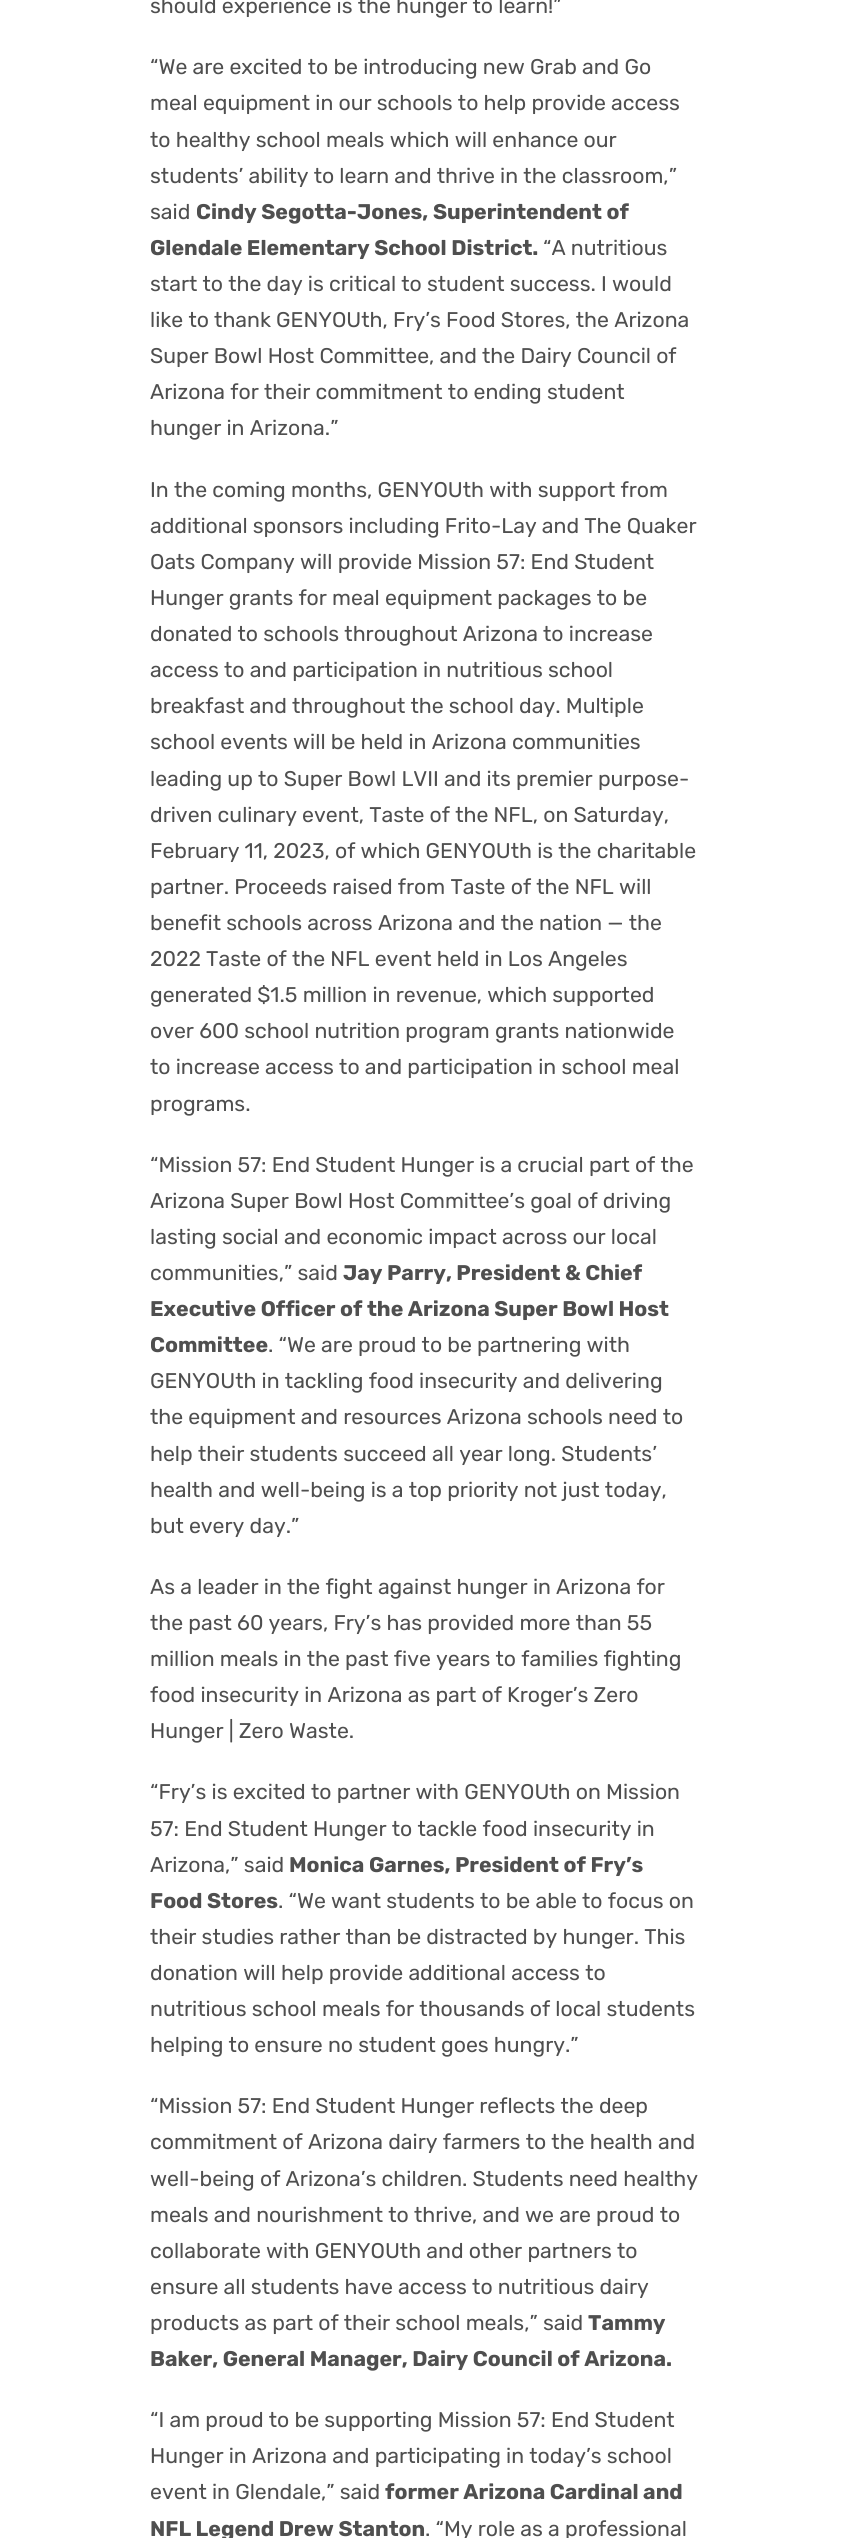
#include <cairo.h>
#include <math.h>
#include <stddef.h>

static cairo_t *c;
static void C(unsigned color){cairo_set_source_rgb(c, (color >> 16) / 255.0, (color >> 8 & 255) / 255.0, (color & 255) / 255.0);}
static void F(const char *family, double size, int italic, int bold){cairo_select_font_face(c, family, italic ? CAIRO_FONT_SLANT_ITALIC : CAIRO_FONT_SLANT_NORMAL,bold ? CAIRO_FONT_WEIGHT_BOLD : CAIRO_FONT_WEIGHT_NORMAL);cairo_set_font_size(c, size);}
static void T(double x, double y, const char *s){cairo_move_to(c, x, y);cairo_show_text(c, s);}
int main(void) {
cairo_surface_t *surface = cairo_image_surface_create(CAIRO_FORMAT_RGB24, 850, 2538);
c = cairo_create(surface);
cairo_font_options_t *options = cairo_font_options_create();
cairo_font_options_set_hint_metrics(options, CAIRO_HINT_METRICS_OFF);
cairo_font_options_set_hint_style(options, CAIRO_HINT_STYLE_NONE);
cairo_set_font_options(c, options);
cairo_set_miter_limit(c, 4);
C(0xffffff);
cairo_paint(c);
F("Rubik",21.25,0,0);
C(0x4f4f4f);
T(150,13,"should experience is the hunger to learn!”");
T(150,74,"“We are excited to be introducing new Grab and Go");
T(150,110,"meal equipment in our schools to help provide access");
T(150,147,"to healthy school meals which will enhance our");
T(150,183,"students’ ability to learn and thrive in the classroom,”");
T(150,219,"said");
F("Rubik",21.25,0,1);
T(196,219,"Cindy Segotta-Jones,");
T(433,219,"Superintendent of");
T(150,255,"Glendale Elementary School District.");
F("Rubik",21.25,0,0);
T(543,255,"“A nutritious");
T(150,291,"start to the day is critical to student success. I would");
T(150,327,"like to thank GENYOUth, Fry’s Food Stores, the Arizona");
T(150,363,"Super Bowl Host Committee, and the Dairy Council of");
T(150,399,"Arizona for their commitment to ending student");
T(150,435,"hunger in Arizona.”");
T(150,497,"In the coming months, GENYOUth with support from");
T(150,533,"additional sponsors including Frito-Lay and The Quaker");
T(150,569,"Oats Company will provide Mission 57: End Student");
T(150,605,"Hunger grants for meal equipment packages to be");
T(150,641,"donated to schools throughout Arizona to increase");
T(150,677,"access to and participation in nutritious school");
T(150,713,"breakfast and throughout the school day. Multiple");
T(150,749,"school events will be held in Arizona communities");
T(150,786,"leading up to Super Bowl LVII and its premier purpose-");
T(150,822,"driven culinary event, Taste of the NFL, on Saturday,");
T(150,858,"February 11, 2023, of which GENYOUth is the charitable");
T(150,894,"partner. Proceeds raised from Taste of the NFL will");
T(150,930,"benefit schools across Arizona and the nation — the");
T(150,966,"2022 Taste of the NFL event held in Los Angeles");
T(150,1002,"generated $1.5 million in revenue, which supported");
T(150,1038,"over 600 school nutrition program grants nationwide");
T(150,1074,"to increase access to and participation in school meal");
T(150,1111,"programs.");
T(150,1172,"“Mission 57: End Student Hunger is a crucial part of the");
T(150,1208,"Arizona Super Bowl Host Committee’s goal of driving");
T(150,1244,"lasting social and economic impact across our local");
T(150,1280,"communities,” said");
F("Rubik",21.25,0,1);
T(343,1280,"Jay Parry, President & Chief");
T(150,1316,"Executive Officer of the Arizona Super Bowl Host");
T(150,1352,"Committee");
F("Rubik",21.25,0,0);
T(268,1352,". “We are proud to be partnering with");
T(150,1388,"GENYOUth in tackling food insecurity and delivering");
T(150,1424,"the equipment and resources Arizona schools need to");
T(150,1461,"help their students succeed all year long. Students’");
T(150,1497,"health and well-being is a top priority not just today,");
T(150,1533,"but every day.”");
T(150,1594,"As a leader in the fight against hunger in Arizona for");
T(150,1630,"the past 60 years, Fry’s has provided more than 55");
T(150,1666,"million meals in the past five years to families fighting");
T(150,1702,"food insecurity in Arizona as part of Kroger’s Zero");
T(150,1738,"Hunger | Zero Waste.");
T(150,1799,"“Fry’s is excited to partner with GENYOUth on Mission");
T(150,1836,"57: End Student Hunger to tackle food insecurity in");
T(150,1872,"Arizona,” said");
F("Rubik",21.25,0,1);
T(289,1872,"Monica Garnes, President of Fry’s");
T(150,1908,"Food Stores");
F("Rubik",21.25,0,0);
T(278,1908,". “We want students to be able to focus on");
T(150,1944,"their studies rather than be distracted by hunger. This");
T(150,1980,"donation will help provide additional access to");
T(150,2016,"nutritious school meals for thousands of local students");
T(150,2052,"helping to ensure no student goes hungry.”");
T(150,2113,"“Mission 57: End Student Hunger reflects the deep");
T(150,2149,"commitment of Arizona dairy farmers to the health and");
T(150,2186,"well-being of Arizona’s children. Students need healthy");
T(150,2222,"meals and nourishment to thrive, and we are proud to");
T(150,2258,"collaborate with GENYOUth and other partners to");
T(150,2294,"ensure all students have access to nutritious dairy");
T(150,2330,"products as part of their school meals,” said");
F("Rubik",21.25,0,1);
T(588,2330,"Tammy");
T(150,2366,"Baker, General Manager, Dairy Council of Arizona.");
F("Rubik",21.25,0,0);
T(150,2427,"“I am proud to be supporting Mission 57: End Student");
T(150,2463,"Hunger in Arizona and participating in today’s school");
T(150,2499,"event in Glendale,” said");
F("Rubik",21.25,0,1);
T(385,2499,"former Arizona Cardinal and");
T(150,2536,"NFL Legend Drew Stanton");
F("Rubik",21.25,0,0);
T(425,2536,". “My role as a professional");
cairo_surface_write_to_png(surface, "o.png");
cairo_font_options_destroy(options);
cairo_destroy(c);
cairo_surface_destroy(surface);
return 0;
}
